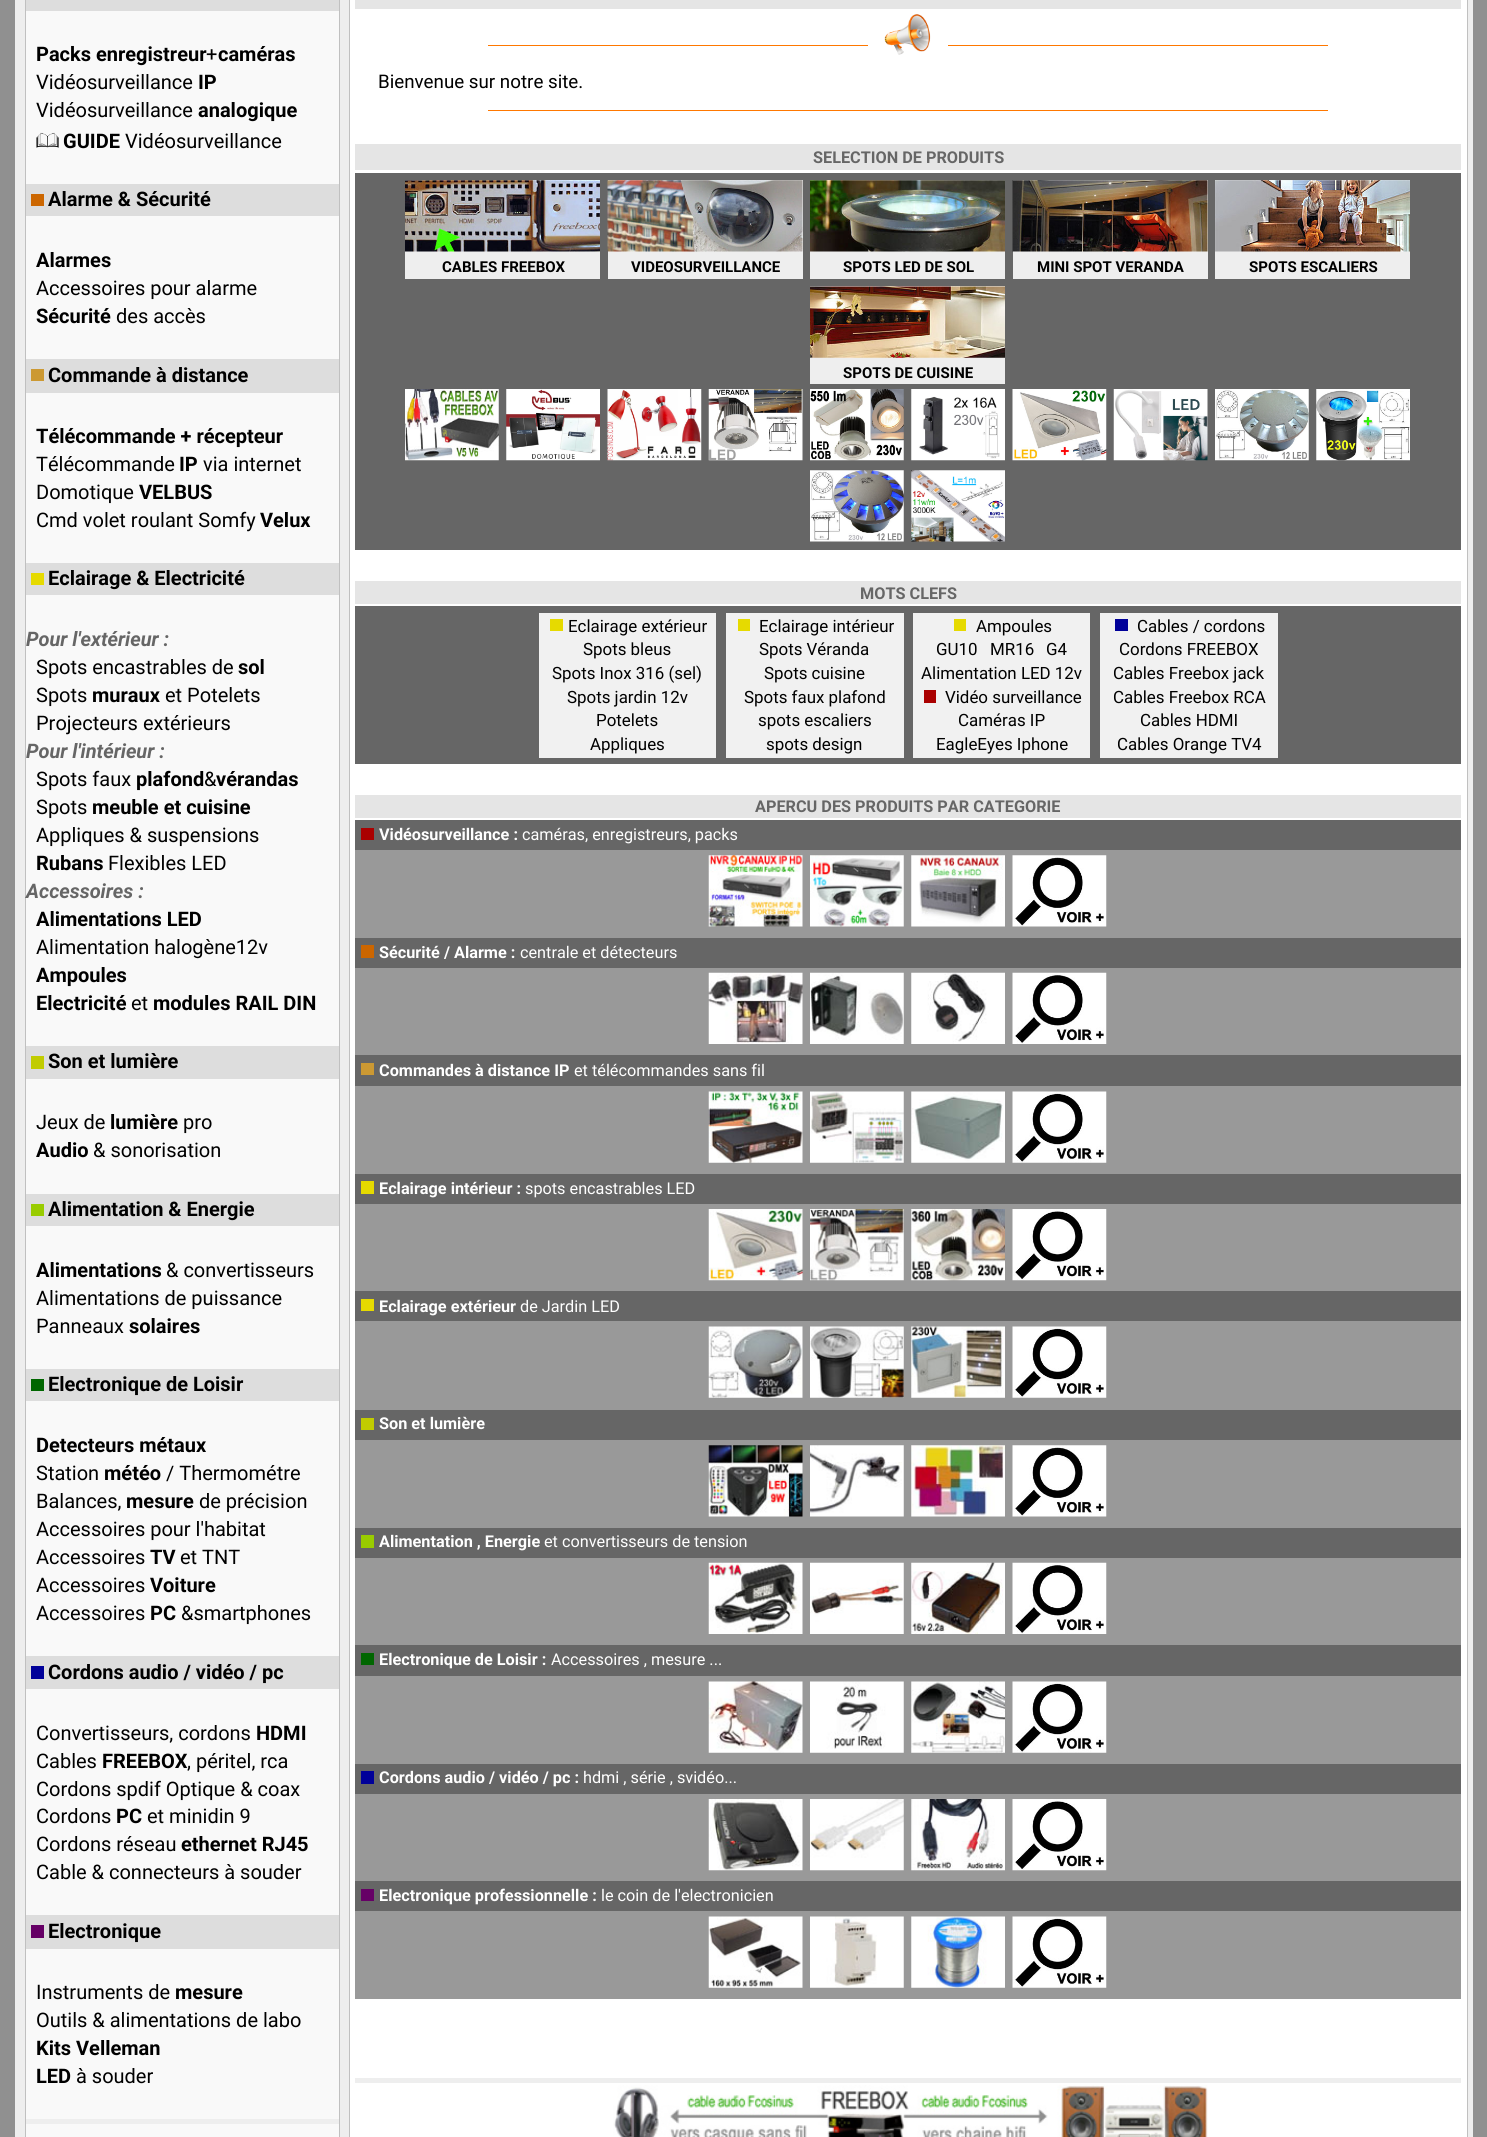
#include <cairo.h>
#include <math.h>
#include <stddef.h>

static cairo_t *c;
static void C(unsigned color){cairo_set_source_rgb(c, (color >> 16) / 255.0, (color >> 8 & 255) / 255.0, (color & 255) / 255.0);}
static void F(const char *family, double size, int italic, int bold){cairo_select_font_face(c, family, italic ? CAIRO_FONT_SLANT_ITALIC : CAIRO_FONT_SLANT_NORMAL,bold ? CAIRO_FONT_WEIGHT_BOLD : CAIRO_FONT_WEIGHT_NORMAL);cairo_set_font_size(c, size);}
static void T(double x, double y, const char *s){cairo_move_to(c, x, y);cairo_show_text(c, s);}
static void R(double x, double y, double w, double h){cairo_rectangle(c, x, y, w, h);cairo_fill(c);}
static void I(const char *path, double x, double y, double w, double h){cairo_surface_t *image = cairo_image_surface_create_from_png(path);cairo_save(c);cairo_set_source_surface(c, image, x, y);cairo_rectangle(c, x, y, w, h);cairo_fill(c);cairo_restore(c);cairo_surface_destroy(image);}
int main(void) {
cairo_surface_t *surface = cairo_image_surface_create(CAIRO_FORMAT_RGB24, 1487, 2137);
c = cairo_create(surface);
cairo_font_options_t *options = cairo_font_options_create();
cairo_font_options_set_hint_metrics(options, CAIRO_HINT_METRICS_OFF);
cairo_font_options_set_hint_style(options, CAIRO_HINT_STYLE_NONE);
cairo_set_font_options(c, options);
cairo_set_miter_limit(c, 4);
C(0x909090);
cairo_paint(c);
C(0xeeeeee);
R(15,0,1458,2137);
C(0xf9f9f9);
R(26,11,313,2126);
cairo_rectangle(c,25.5,-.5,314,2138);
C(0xc0c0c0);
cairo_set_line_width(c,1);
cairo_stroke(c);
C(0xdddddd);
R(26,0,313,11);
F("Roboto",20,0,1);
C(0x000000);
T(36,61,"Packs enregistreur");
F("Roboto",20,0,0);
T(206,61,"+");
F("Roboto",20,0,1);
T(218,61,"caméras");
F("Roboto",20,0,0);
T(36,89,"Vidéosurveillance");
F("Roboto",20,0,1);
T(198,89,"IP");
F("Roboto",20,0,0);
T(36,117,"Vidéosurveillance");
F("Roboto",20,0,1);
T(198,117,"analogique");
I("1.png",36,132,23,16);
T(63,148,"GUIDE");
F("Roboto",20,0,0);
T(125,148,"Vidéosurveillance");
C(0xdddddd);
R(26,184,313,32);
C(0xcc6600);
R(31,194,13,12);
F("Roboto",20,0,1);
C(0x000000);
T(48,206,"Alarme & Sécurité");
T(36,267,"Alarmes");
F("Roboto",20,0,0);
T(36,295,"Accessoires pour alarme");
F("Roboto",20,0,1);
T(36,323,"Sécurité");
F("Roboto",20,0,0);
T(116,323,"des accès");
C(0xdddddd);
R(26,359,313,34);
C(0xcc9933);
R(31,369,13,12);
F("Roboto",20,0,1);
C(0x000000);
T(48,382,"Commande à distance");
T(36,443,"Télécommande + récepteur");
F("Roboto",20,0,0);
T(36,471,"Télécommande");
F("Roboto",20,0,1);
T(179,471,"IP");
F("Roboto",20,0,0);
T(203,471,"via internet");
T(36,499,"Domotique");
F("Roboto",20,0,1);
T(139,499,"VELBUS");
F("Roboto",20,0,0);
T(36,527,"Cmd volet roulant Somfy");
F("Roboto",20,0,1);
T(260,527,"Velux");
C(0xdddddd);
R(26,563,313,32);
C(0xe6da00);
R(31,573,13,12);
C(0x000000);
T(48,585,"Eclairage & Electricité");
F("Roboto",20,1,1);
C(0x666666);
T(26,646,"Pour l'extérieur :");
F("Roboto",20,0,0);
C(0x000000);
T(36,674,"Spots encastrables de");
F("Roboto",20,0,1);
T(238,674,"sol");
F("Roboto",20,0,0);
T(36,702,"Spots");
F("Roboto",20,0,1);
T(92,702,"muraux");
F("Roboto",20,0,0);
T(165,702,"et Potelets");
T(36,730,"Projecteurs extérieurs");
F("Roboto",20,1,1);
C(0x666666);
T(26,758,"Pour l'intérieur :");
F("Roboto",20,0,0);
C(0x000000);
T(36,786,"Spots faux");
F("Roboto",20,0,1);
T(136,786,"plafond");
F("Roboto",20,0,0);
T(204,786,"&");
F("Roboto",20,0,1);
T(216,786,"vérandas");
F("Roboto",20,0,0);
T(36,814,"Spots");
F("Roboto",20,0,1);
T(92,814,"meuble et cuisine");
F("Roboto",20,0,0);
T(36,842,"Appliques & suspensions");
F("Roboto",20,0,1);
T(36,870,"Rubans");
F("Roboto",20,0,0);
T(108,870,"Flexibles LED");
F("Roboto",20,1,1);
C(0x666666);
T(26,898,"Accessoires :");
F("Roboto",20,0,1);
C(0x000000);
T(36,926,"Alimentations LED");
F("Roboto",20,0,0);
T(36,954,"Alimentation halogène12v");
F("Roboto",20,0,1);
T(36,982,"Ampoules");
T(36,1010,"Electricité");
F("Roboto",20,0,0);
T(131,1010,"et");
F("Roboto",20,0,1);
T(153,1010,"modules RAIL DIN");
C(0xdddddd);
R(26,1046,313,33);
C(0xc1cc00);
R(31,1056,13,13);
C(0x000000);
T(48,1068,"Son et lumière");
F("Roboto",20,0,0);
T(36,1129,"Jeux de");
F("Roboto",20,0,1);
T(110,1129,"lumière");
F("Roboto",20,0,0);
T(183,1129,"pro");
F("Roboto",20,0,1);
T(36,1157,"Audio");
F("Roboto",20,0,0);
T(93,1157,"& sonorisation");
C(0xdddddd);
R(26,1194,313,32);
C(0x99cc00);
R(31,1204,13,12);
F("Roboto",20,0,1);
C(0x000000);
T(48,1216,"Alimentation & Energie");
T(36,1277,"Alimentations");
F("Roboto",20,0,0);
T(166,1277,"& convertisseurs");
T(36,1305,"Alimentations de puissance");
T(36,1333,"Panneaux");
F("Roboto",20,0,1);
T(129,1333,"solaires");
C(0xdddddd);
R(26,1369,313,32);
C(0x006600);
R(31,1379,13,12);
C(0x000000);
T(48,1391,"Electronique de Loisir");
T(36,1452,"Detecteurs métaux");
F("Roboto",20,0,0);
T(36,1480,"Station");
F("Roboto",20,0,1);
T(104,1480,"météo");
F("Roboto",20,0,0);
T(166,1480,"/ Thermométre");
T(36,1508,"Balances,");
F("Roboto",20,0,1);
T(126,1508,"mesure");
F("Roboto",20,0,0);
T(199,1508,"de précision");
T(36,1536,"Accessoires pour l'habitat");
T(36,1564,"Accessoires");
F("Roboto",20,0,1);
T(150,1564,"TV");
F("Roboto",20,0,0);
T(180,1564,"et TNT");
T(36,1592,"Accessoires");
F("Roboto",20,0,1);
T(150,1592,"Voiture");
F("Roboto",20,0,0);
T(36,1620,"Accessoires");
F("Roboto",20,0,1);
T(150,1620,"PC");
F("Roboto",20,0,0);
T(181,1620,"&smartphones");
C(0xdddddd);
R(26,1656,313,33);
C(0x000099);
R(31,1666,13,13);
F("Roboto",20,0,1);
C(0x000000);
T(48,1679,"Cordons audio / vidéo / pc");
F("Roboto",20,0,0);
T(36,1740,"Convertisseurs, cordons");
F("Roboto",20,0,1);
T(256,1740,"HDMI");
F("Roboto",20,0,0);
T(36,1768,"Cables");
F("Roboto",20,0,1);
T(102,1768,"FREEBOX");
F("Roboto",20,0,0);
T(187,1768,", péritel, rca");
T(36,1796,"Cordons spdif Optique & coax");
T(36,1823,"Cordons");
F("Roboto",20,0,1);
T(116,1823,"PC");
F("Roboto",20,0,0);
T(147,1823,"et minidin 9");
T(36,1851,"Cordons réseau");
F("Roboto",20,0,1);
T(181,1851,"ethernet RJ45");
F("Roboto",20,0,0);
T(36,1879,"Cable & connecteurs à souder");
C(0xdddddd);
R(26,1915,313,34);
C(0x660066);
R(31,1925,13,13);
F("Roboto",20,0,1);
C(0x000000);
T(48,1938,"Electronique");
F("Roboto",20,0,0);
T(36,1999,"Instruments de");
F("Roboto",20,0,1);
T(175,1999,"mesure");
F("Roboto",20,0,0);
T(36,2027,"Outils & alimentations de labo");
F("Roboto",20,0,1);
T(36,2055,"Kits Velleman");
T(36,2083,"LED");
F("Roboto",20,0,0);
T(76,2083,"à souder");
C(0xeeeeee);
R(26,2119,313,5);
C(0xffffff);
cairo_rectangle(c,349.5,-.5,1118,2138);
cairo_fill_preserve(c);
C(0xc0c0c0);
cairo_stroke(c);
C(0xe5e5e5);
R(355,0,1106,9);
C(0xff7800);
R(488,45,380,1);
I("2.png",884,14,47,41);
R(948,45,380,1);
F("Roboto",18.75,0,0);
C(0x000000);
T(378,88,"Bienvenue sur notre site.");
C(0xff7800);
R(488,110,840,1);
C(0xe5e5e5);
R(355,144,1106,26);
F("Roboto",16.25,0,1);
C(0x666666);
T(813,163,"SELECTION DE PRODUITS");
R(355,173,1106,377);
C(0xeeeeee);
R(405,180,195,99);
I("3.png",405,180,195,72);
F("Roboto",15,0,1);
C(0x000000);
T(442,272,"CABLES FREEBOX");
C(0xeeeeee);
R(608,180,195,99);
I("4.png",607,180,196,72);
C(0x000000);
T(631,272,"VIDEOSURVEILLANCE");
C(0xeeeeee);
R(810,180,195,99);
I("5.png",810,180,195,72);
C(0x000000);
T(843,272,"SPOTS LED DE SOL");
C(0xeeeeee);
R(1013,180,195,99);
I("6.png",1012,180,196,72);
C(0x000000);
T(1037,272,"MINI SPOT VERANDA");
C(0xeeeeee);
R(1215,180,195,99);
I("7.png",1215,180,195,72);
C(0x000000);
T(1249,272,"SPOTS ESCALIERS");
C(0xeeeeee);
R(810,286,195,98);
I("8.png",810,286,195,72);
C(0x000000);
T(843,378,"SPOTS DE CUISINE");
I("9.png",405,389,94,72);
I("10.png",506,389,94,72);
I("11.png",607,389,95,72);
I("12.png",708,389,95,72);
I("13.png",810,389,94,72);
I("14.png",911,389,94,72);
I("15.png",1012,389,95,72);
I("16.png",1113,389,95,72);
I("17.png",1215,389,94,72);
I("18.png",1316,389,94,72);
I("19.png",810,470,94,72);
I("20.png",911,470,94,72);
C(0xe5e5e5);
R(355,581,1106,23);
F("Roboto",16.25,0,1);
C(0x666666);
T(860,599,"MOTS CLEFS");
R(355,606,1106,158);
C(0xf1f1f1);
R(539,613,177,145);
C(0xe6da00);
R(550,619,13,12);
F("Roboto",16.9,0,0);
C(0x000000);
T(568,632,"Eclairage extérieur");
T(583,655,"Spots bleus");
T(552,679,"Spots Inox 316 (sel)");
T(567,703,"Spots jardin 12v");
T(596,726,"Potelets");
T(590,750,"Appliques");
C(0xf1f1f1);
R(726,613,178,145);
C(0xe6da00);
R(738,619,12,12);
C(0x000000);
T(759,632,"Eclairage intérieur");
T(759,655,"Spots Véranda");
T(764,679,"Spots cuisine");
T(744,703,"Spots faux plafond");
T(758,726,"spots escaliers");
T(766,750,"spots design");
C(0xf1f1f1);
R(913,613,177,145);
C(0xe6da00);
R(954,619,12,12);
C(0x000000);
T(976,632,"Ampoules");
T(936,655,"GU10");
T(990,655,"MR16");
T(1046,655,"G4");
T(921,679,"Alimentation LED 12v");
C(0xaa0000);
R(924,690,12,13);
C(0x000000);
T(945,703,"Vidéo surveillance");
T(958,726,"Caméras IP");
T(936,750,"EagleEyes Iphone");
C(0xf1f1f1);
R(1100,613,178,145);
C(0x000099);
R(1115,619,13,12);
C(0x000000);
T(1137,632,"Cables / cordons");
T(1119,655,"Cordons FREEBOX");
T(1113,679,"Cables Freebox jack");
T(1113,703,"Cables Freebox RCA");
T(1140,726,"Cables HDMI");
T(1117,750,"Cables Orange TV4");
C(0xe5e5e5);
R(355,795,1106,23);
F("Roboto",16.25,0,1);
C(0x666666);
T(755,812,"APERCU DES PRODUITS PAR CATEGORIE");
R(355,820,1106,30);
C(0xaa0000);
R(361,828,13,12);
C(0xffffff);
T(379,840,"Vidéosurveillance :");
F("Roboto",16.25,0,0);
T(522,840,"caméras, enregistreurs, packs");
C(0x999999);
R(355,850,1106,88);
I("21.png",708,855,95,72);
I("22.png",810,855,94,72);
I("23.png",911,855,94,72);
I("24.png",1012,855,95,72);
C(0x666666);
R(355,938,1106,30);
C(0xcc6600);
R(361,945,13,13);
F("Roboto",16.25,0,1);
C(0xffffff);
T(379,958,"Sécurité / Alarme :");
F("Roboto",16.25,0,0);
T(520,958,"centrale et détecteurs");
C(0x999999);
R(355,968,1106,87);
I("25.png",708,972,95,72);
I("26.png",810,972,94,72);
I("27.png",911,972,94,72);
I("28.png",1012,972,95,72);
C(0x666666);
R(355,1055,1106,31);
C(0xcc9933);
R(361,1063,13,12);
F("Roboto",16.25,0,1);
C(0xffffff);
T(379,1076,"Commandes à distance IP");
F("Roboto",16.25,0,0);
T(574,1076,"et télécommandes sans fil");
C(0x999999);
R(355,1086,1106,88);
I("29.png",708,1091,95,72);
I("30.png",810,1091,94,72);
I("31.png",911,1091,94,72);
I("32.png",1012,1091,95,72);
C(0x666666);
R(355,1174,1106,30);
C(0xe6da00);
R(361,1181,13,13);
F("Roboto",16.25,0,1);
C(0xffffff);
T(379,1194,"Eclairage intérieur :");
F("Roboto",16.25,0,0);
T(525,1194,"spots encastrables LED");
C(0x999999);
R(355,1204,1106,87);
I("33.png",708,1209,95,72);
I("34.png",810,1209,94,72);
I("35.png",911,1209,94,72);
I("36.png",1012,1209,95,72);
C(0x666666);
R(355,1291,1106,30);
C(0xe6da00);
R(361,1299,13,12);
F("Roboto",16.25,0,1);
C(0xffffff);
T(379,1312,"Eclairage extérieur");
F("Roboto",16.25,0,0);
T(520,1312,"de Jardin LED");
C(0x999999);
R(355,1321,1106,89);
I("37.png",708,1326,95,72);
I("38.png",810,1326,94,72);
I("39.png",911,1326,94,72);
I("32.png",1012,1326,95,72);
C(0x666666);
R(355,1410,1106,30);
C(0xc1cc00);
R(361,1418,13,12);
F("Roboto",16.25,0,1);
C(0xffffff);
T(379,1429,"Son et lumière");
C(0x999999);
R(355,1440,1106,88);
I("40.png",708,1445,95,72);
I("41.png",810,1445,94,72);
I("42.png",911,1445,94,72);
I("24.png",1012,1445,95,72);
C(0x666666);
R(355,1528,1106,30);
C(0x99cc00);
R(361,1535,13,13);
C(0xffffff);
T(379,1547,"Alimentation , Energie");
F("Roboto",16.25,0,0);
T(544,1547,"et convertisseurs de tension");
C(0x999999);
R(355,1558,1106,87);
I("43.png",708,1562,95,72);
I("44.png",810,1562,94,72);
I("45.png",911,1562,94,72);
I("28.png",1012,1562,95,72);
C(0x666666);
R(355,1645,1106,31);
C(0x006600);
R(361,1653,13,12);
F("Roboto",16.25,0,1);
C(0xffffff);
T(379,1665,"Electronique de Loisir :");
F("Roboto",16.25,0,0);
T(551,1665,"Accessoires , mesure ...");
C(0x999999);
R(355,1676,1106,88);
I("46.png",708,1681,95,72);
I("47.png",810,1681,94,72);
I("48.png",911,1681,94,72);
I("32.png",1012,1681,95,72);
C(0x666666);
R(355,1764,1106,30);
C(0x000099);
R(361,1771,13,13);
F("Roboto",16.25,0,1);
C(0xffffff);
T(379,1783,"Cordons audio / vidéo / pc :");
F("Roboto",16.25,0,0);
T(583,1783,"hdmi , série , svidéo...");
C(0x999999);
R(355,1794,1106,87);
I("49.png",708,1799,95,72);
I("50.png",810,1799,94,72);
I("51.png",911,1799,94,72);
I("36.png",1012,1799,95,72);
C(0x666666);
R(355,1881,1106,30);
C(0x660066);
R(361,1889,13,12);
F("Roboto",16.25,0,1);
C(0xffffff);
T(379,1901,"Electronique professionnelle :");
F("Roboto",16.25,0,0);
T(601,1901,"le coin de l'electronicien");
C(0x999999);
R(355,1911,1106,88);
I("52.png",708,1916,95,72);
I("53.png",810,1916,94,72);
I("54.png",911,1916,94,72);
I("32.png",1012,1916,95,72);
C(0xeeeeee);
R(355,2078,1106,5);
I("55.png",613,2085,595,52);
cairo_surface_write_to_png(surface, "o.png");
cairo_font_options_destroy(options);
cairo_destroy(c);
cairo_surface_destroy(surface);
return 0;
}
